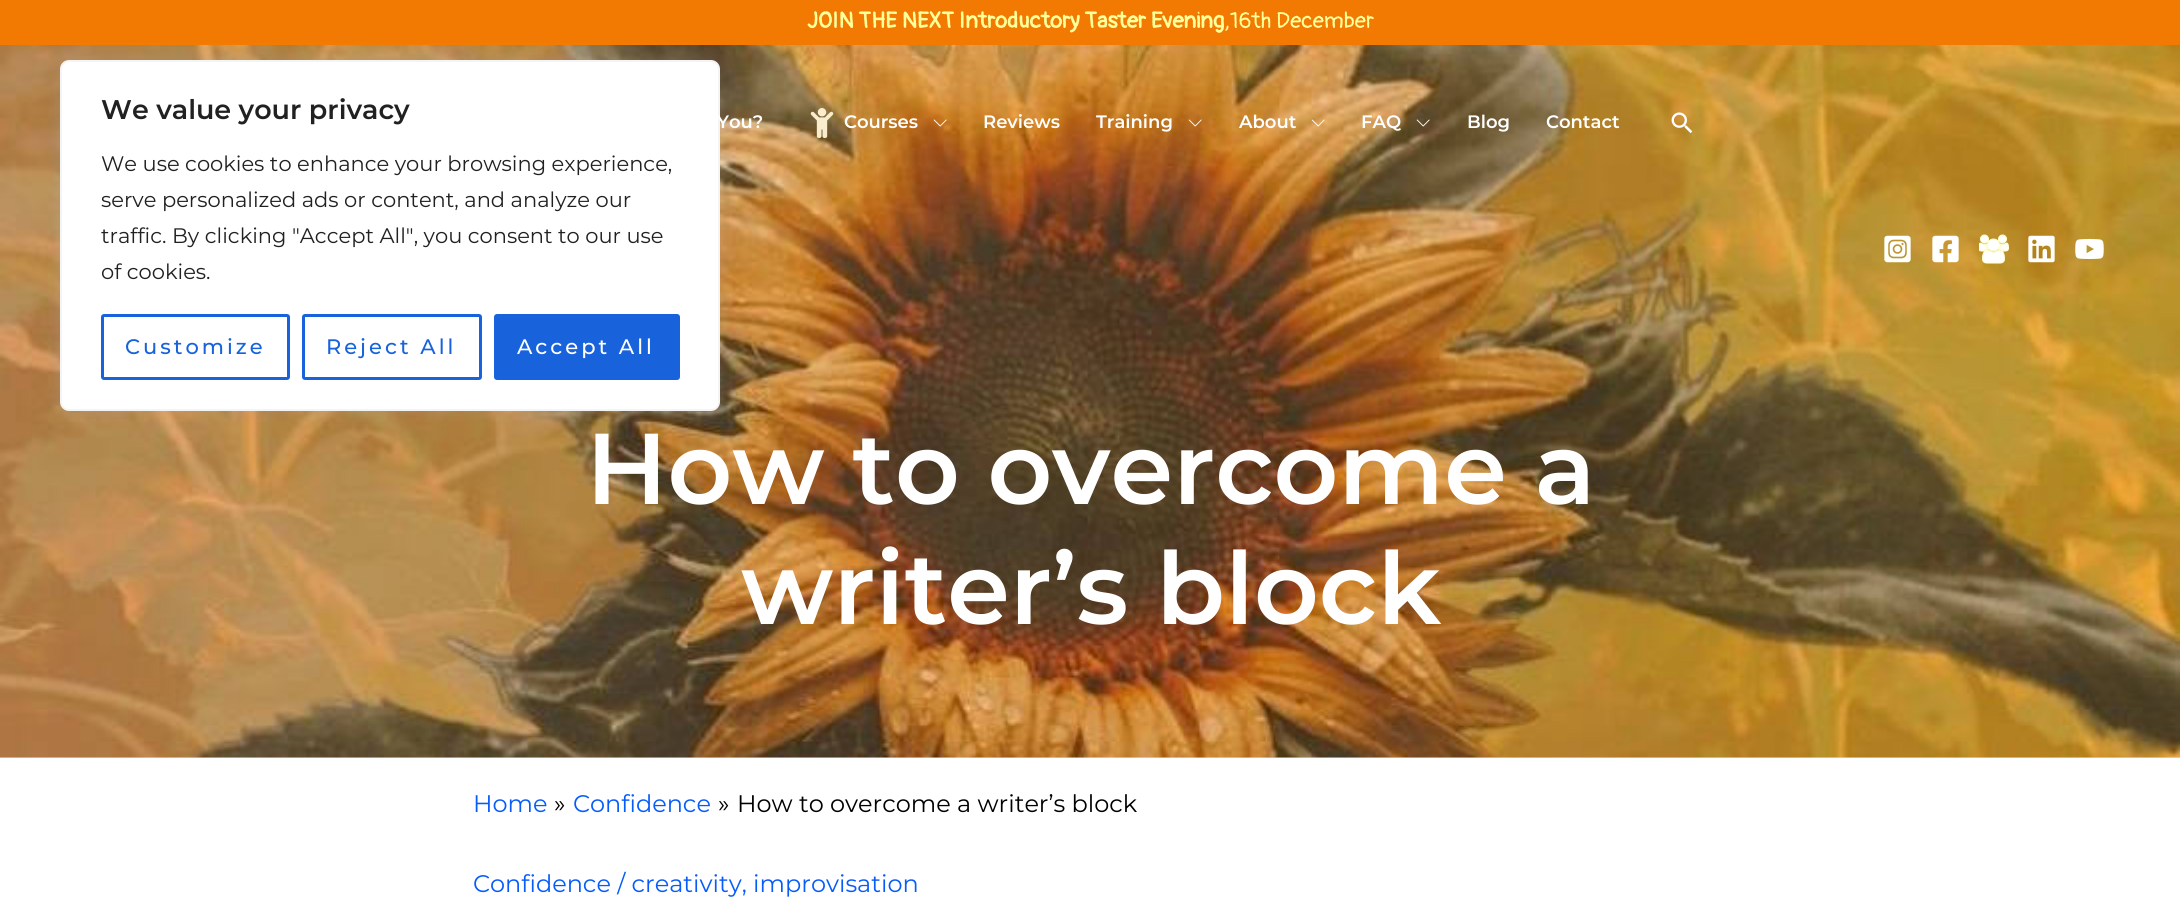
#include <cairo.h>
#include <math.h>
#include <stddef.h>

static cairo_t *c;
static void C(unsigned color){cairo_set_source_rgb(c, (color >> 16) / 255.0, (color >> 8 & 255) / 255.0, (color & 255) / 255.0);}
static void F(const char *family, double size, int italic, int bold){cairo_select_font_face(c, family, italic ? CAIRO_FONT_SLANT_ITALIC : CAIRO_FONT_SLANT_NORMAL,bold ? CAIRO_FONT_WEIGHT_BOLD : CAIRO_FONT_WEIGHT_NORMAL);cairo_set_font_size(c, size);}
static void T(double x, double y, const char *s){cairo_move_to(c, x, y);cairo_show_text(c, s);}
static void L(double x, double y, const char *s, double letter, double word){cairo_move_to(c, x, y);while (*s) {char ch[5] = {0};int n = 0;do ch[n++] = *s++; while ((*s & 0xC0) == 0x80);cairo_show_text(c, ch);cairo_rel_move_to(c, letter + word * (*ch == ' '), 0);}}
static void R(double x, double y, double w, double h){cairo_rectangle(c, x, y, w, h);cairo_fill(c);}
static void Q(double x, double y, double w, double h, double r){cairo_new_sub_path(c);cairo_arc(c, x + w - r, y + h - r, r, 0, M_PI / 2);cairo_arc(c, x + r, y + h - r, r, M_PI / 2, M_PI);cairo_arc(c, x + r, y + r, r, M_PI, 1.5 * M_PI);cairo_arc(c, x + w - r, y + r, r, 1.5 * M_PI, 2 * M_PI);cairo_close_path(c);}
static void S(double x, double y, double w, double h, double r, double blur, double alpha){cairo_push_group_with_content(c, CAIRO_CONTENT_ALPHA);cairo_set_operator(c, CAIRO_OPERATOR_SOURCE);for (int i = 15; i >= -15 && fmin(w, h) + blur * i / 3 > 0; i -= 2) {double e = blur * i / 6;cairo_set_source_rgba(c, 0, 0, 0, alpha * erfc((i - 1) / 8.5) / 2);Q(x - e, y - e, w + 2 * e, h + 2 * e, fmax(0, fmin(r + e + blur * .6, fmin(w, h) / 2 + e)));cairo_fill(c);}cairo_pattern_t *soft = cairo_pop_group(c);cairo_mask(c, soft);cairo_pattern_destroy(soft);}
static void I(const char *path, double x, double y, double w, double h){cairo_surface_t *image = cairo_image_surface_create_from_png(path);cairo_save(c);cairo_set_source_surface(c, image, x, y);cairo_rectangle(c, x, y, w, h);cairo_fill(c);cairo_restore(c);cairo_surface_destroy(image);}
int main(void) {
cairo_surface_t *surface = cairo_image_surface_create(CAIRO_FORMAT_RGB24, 2180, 911);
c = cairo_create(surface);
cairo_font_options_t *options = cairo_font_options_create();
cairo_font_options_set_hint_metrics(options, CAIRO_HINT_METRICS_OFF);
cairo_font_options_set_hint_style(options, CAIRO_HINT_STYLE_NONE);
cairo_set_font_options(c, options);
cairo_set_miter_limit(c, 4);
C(0xffffff);
cairo_paint(c);
C(0xeaeaea);
R(0,757,2180,1);
I("1.png",0,45,2180,713);
C(0xf27a02);
R(0,0,2180,45);
C(0xacabab);
S(60,59,660,351,9,7.5,.3);
C(0xffffff);
Q(61,61,658,349,8);
cairo_fill_preserve(c);
C(0xf4f4f4);
cairo_stroke(c);
F("Montserrat SemiBold",27,0,0);
C(0x212121);
T(101,119,"We value your privacy");
F("Montserrat",21,0,0);
T(101,171,"We use cookies to enhance your browsing experience,");
T(101,207,"serve personalized ads or content, and analyze our");
T(101,243,"traffic. By clicking \"Accept All\", you consent to our use");
T(101,279,"of cookies.");
Q(102.5,315.5,186,63,1.5);
C(0x1863dc);
cairo_set_line_width(c,3);
cairo_stroke(c);
F("Montserrat Medium",21,0,0);
L(125,354,"Customize",3,0);
Q(303.5,315.5,177,63,1.5);
cairo_stroke(c);
L(326,354,"Reject All",3,0);
Q(495.5,315.5,183,63,1.5);
cairo_fill_preserve(c);
cairo_stroke(c);
C(0xffffff);
L(517,354,"Accept All",3,0);
F("Pangolin",22.5,0,1);
C(0xffff99);
T(807,28,"JOIN THE NEXT Introductory Taster Evening");
F("Pangolin",22.5,0,0);
T(1224,28,",16th December");
F("Montserrat SemiBold",18,0,0);
C(0xffffff);
T(717,128,"You?");
I("2.png",810,108,24,30);
T(844,128,"Courses");
I("3.png",933,119,14,8);
T(983,128,"Reviews");
T(1096,128,"Training");
I("4.png",1188,119,14,8);
T(1239,128,"About");
I("5.png",1311,119,14,8);
T(1361,128,"FAQ");
I("6.png",1416,119,14,8);
T(1467,128,"Blog");
T(1546,128,"Contact");
I("7.png",1671,112,22,22);
I("8.png",1884,235,27,28);
I("9.png",1932,235,27,28);
I("10.png",1979,234,30,30);
I("11.png",2028,235,27,28);
I("12.png",2075,238,29,22);
F("Montserrat SemiBold",100.5,0,0);
T(586,504,"How to overcome a");
T(741,624,"writer’s block");
F("Montserrat",24,0,0);
C(0x065cfa);
T(473,812,"Home");
C(0x000000);
T(554,812,"»");
C(0x065cfa);
T(573,812,"Confidence");
C(0x000000);
T(718,812,"»");
T(737,812,"How to overcome a writer’s block");
C(0x065cfa);
T(473,892,"Confidence / creativity, improvisation");
cairo_surface_write_to_png(surface, "o.png");
cairo_font_options_destroy(options);
cairo_destroy(c);
cairo_surface_destroy(surface);
return 0;
}
